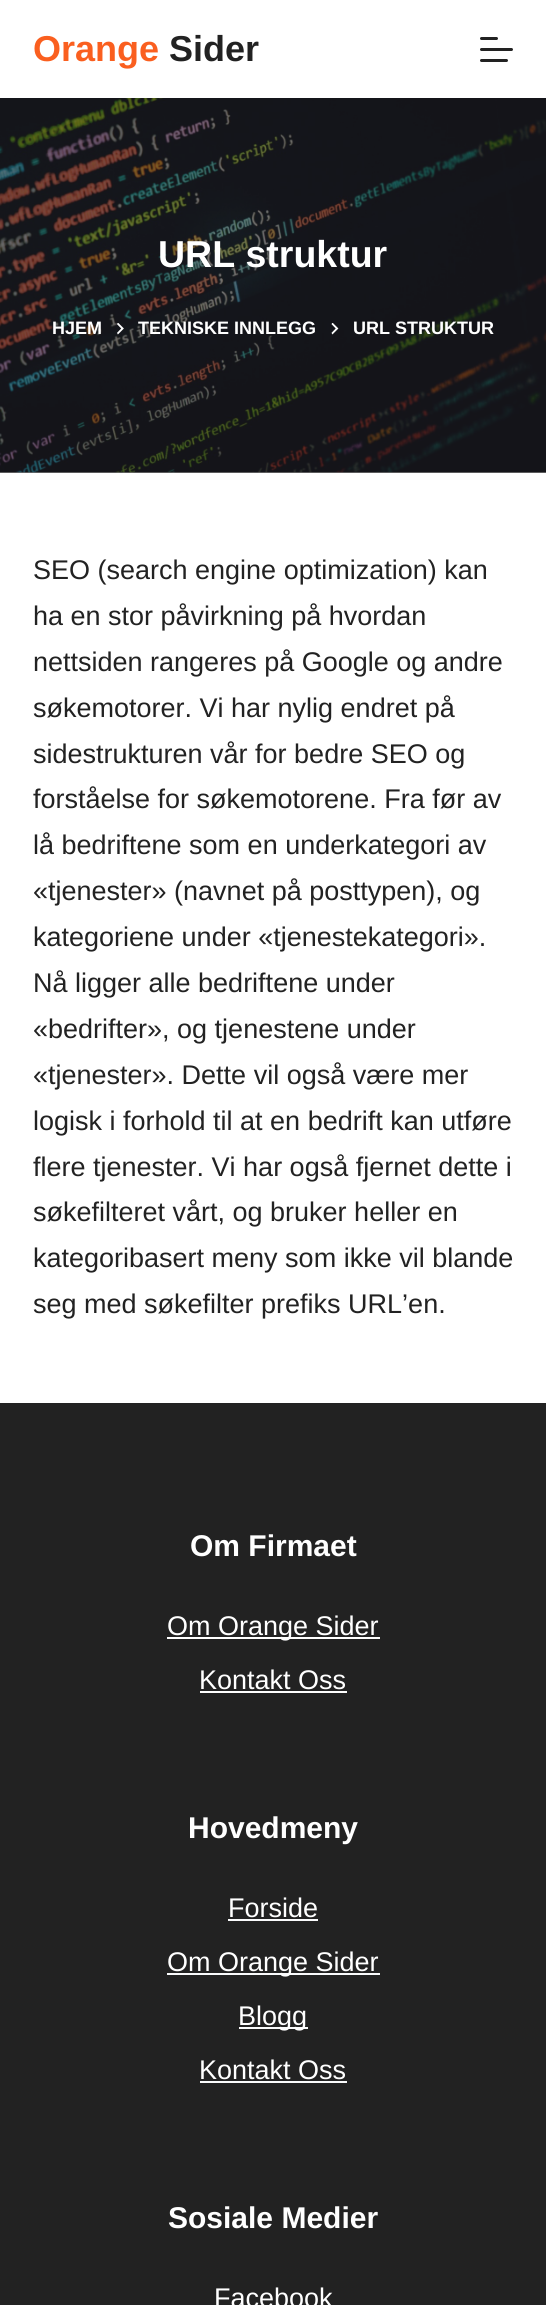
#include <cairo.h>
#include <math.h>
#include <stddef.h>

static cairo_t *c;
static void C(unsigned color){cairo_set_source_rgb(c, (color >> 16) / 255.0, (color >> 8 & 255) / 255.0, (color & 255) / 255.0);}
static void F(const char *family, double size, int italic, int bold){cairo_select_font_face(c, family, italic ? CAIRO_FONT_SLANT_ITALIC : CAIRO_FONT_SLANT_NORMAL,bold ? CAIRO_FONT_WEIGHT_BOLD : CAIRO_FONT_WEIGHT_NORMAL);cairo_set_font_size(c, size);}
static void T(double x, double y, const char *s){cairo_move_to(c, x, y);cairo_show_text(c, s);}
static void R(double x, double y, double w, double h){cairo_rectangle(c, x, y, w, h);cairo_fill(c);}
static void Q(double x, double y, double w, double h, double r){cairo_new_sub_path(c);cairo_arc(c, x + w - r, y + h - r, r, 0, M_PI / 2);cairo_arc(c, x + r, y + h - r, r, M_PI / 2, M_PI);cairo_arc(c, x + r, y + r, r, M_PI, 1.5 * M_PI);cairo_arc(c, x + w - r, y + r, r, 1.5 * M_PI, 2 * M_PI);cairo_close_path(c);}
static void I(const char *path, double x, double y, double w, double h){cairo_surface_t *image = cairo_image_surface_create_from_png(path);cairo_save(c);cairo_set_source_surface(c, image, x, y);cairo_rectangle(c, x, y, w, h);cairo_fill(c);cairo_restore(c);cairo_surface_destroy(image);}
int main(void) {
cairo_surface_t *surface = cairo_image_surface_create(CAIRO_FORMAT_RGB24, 546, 2305);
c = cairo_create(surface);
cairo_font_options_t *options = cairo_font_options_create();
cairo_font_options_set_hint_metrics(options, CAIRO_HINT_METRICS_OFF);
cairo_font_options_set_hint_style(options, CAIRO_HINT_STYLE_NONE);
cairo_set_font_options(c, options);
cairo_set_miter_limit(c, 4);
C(0xffffff);
cairo_paint(c);
F("Liberation Sans",36,0,1);
C(0xfa5f1f);
T(33,61,"Orange");
C(0x222222);
T(169,61,"Sider");
Q(480,37,18,3,1.5);
cairo_fill(c);
Q(480,48,33,3,1.5);
cairo_fill(c);
Q(480,59,28,3,1.5);
cairo_fill(c);
C(0x737373);
R(0,472,546,1);
I("1.png",0,98,546,375);
F("Liberation Sans",37.5,0,1);
C(0xffffff);
T(158,267,"URL struktur");
F("Liberation Sans",18,0,1);
T(52,334,"HJEM");
I("2.png",117,323,7,12);
T(138,334,"TEKNISKE INNLEGG");
I("3.png",331,323,8,12);
T(353,334,"URL STRUKTUR");
F("Liberation Sans",27,0,0);
C(0x222222);
T(33,579,"SEO (search engine optimization) kan");
T(33,625,"ha en stor påvirkning på hvordan");
T(33,671,"nettsiden rangeres på Google og andre");
T(33,717,"søkemotorer. Vi har nylig endret på");
T(33,763,"sidestrukturen vår for bedre SEO og");
T(33,808,"forståelse for søkemotorene. Fra før av");
T(33,854,"lå bedriftene som en underkategori av");
T(33,900,"«tjenester» (navnet på posttypen), og");
T(33,946,"kategoriene under «tjenestekategori».");
T(33,992,"Nå ligger alle bedriftene under");
T(33,1038,"«bedrifter», og tjenestene under");
T(33,1084,"«tjenester». Dette vil også være mer");
T(33,1130,"logisk i forhold til at en bedrift kan utføre");
T(33,1176,"flere tjenester. Vi har også fjernet dette i");
T(33,1221,"søkefilteret vårt, og bruker heller en");
T(33,1267,"kategoribasert meny som ikke vil blande");
T(33,1313,"seg med søkefilter prefiks URL’en.");
R(0,1403,546,902);
F("Liberation Sans",30,0,1);
C(0xffffff);
T(190,1556,"Om Firmaet");
R(167,1637,213,2);
F("Liberation Sans",27,0,0);
T(167,1635,"Om Orange Sider");
T(199,1689,"Kontakt Oss");
R(200,1691,147,2);
F("Liberation Sans",30,0,1);
T(188,1838,"Hovedmeny");
F("Liberation Sans",27,0,0);
T(228,1917,"Forside");
C(0xfafbfc);
R(228,1919,90,2);
R(167,1973,213,2);
C(0xffffff);
T(167,1971,"Om Orange Sider");
C(0xfafbfc);
R(239,2027,69,2);
C(0xffffff);
T(238,2025,"Blogg");
T(199,2079,"Kontakt Oss");
C(0xfafbfc);
R(200,2081,147,2);
F("Liberation Sans",30,0,1);
C(0xffffff);
T(168,2228,"Sosiale Medier");
F("Liberation Sans",27,0,0);
T(214,2307,"Facebook");
cairo_surface_write_to_png(surface, "o.png");
cairo_font_options_destroy(options);
cairo_destroy(c);
cairo_surface_destroy(surface);
return 0;
}
